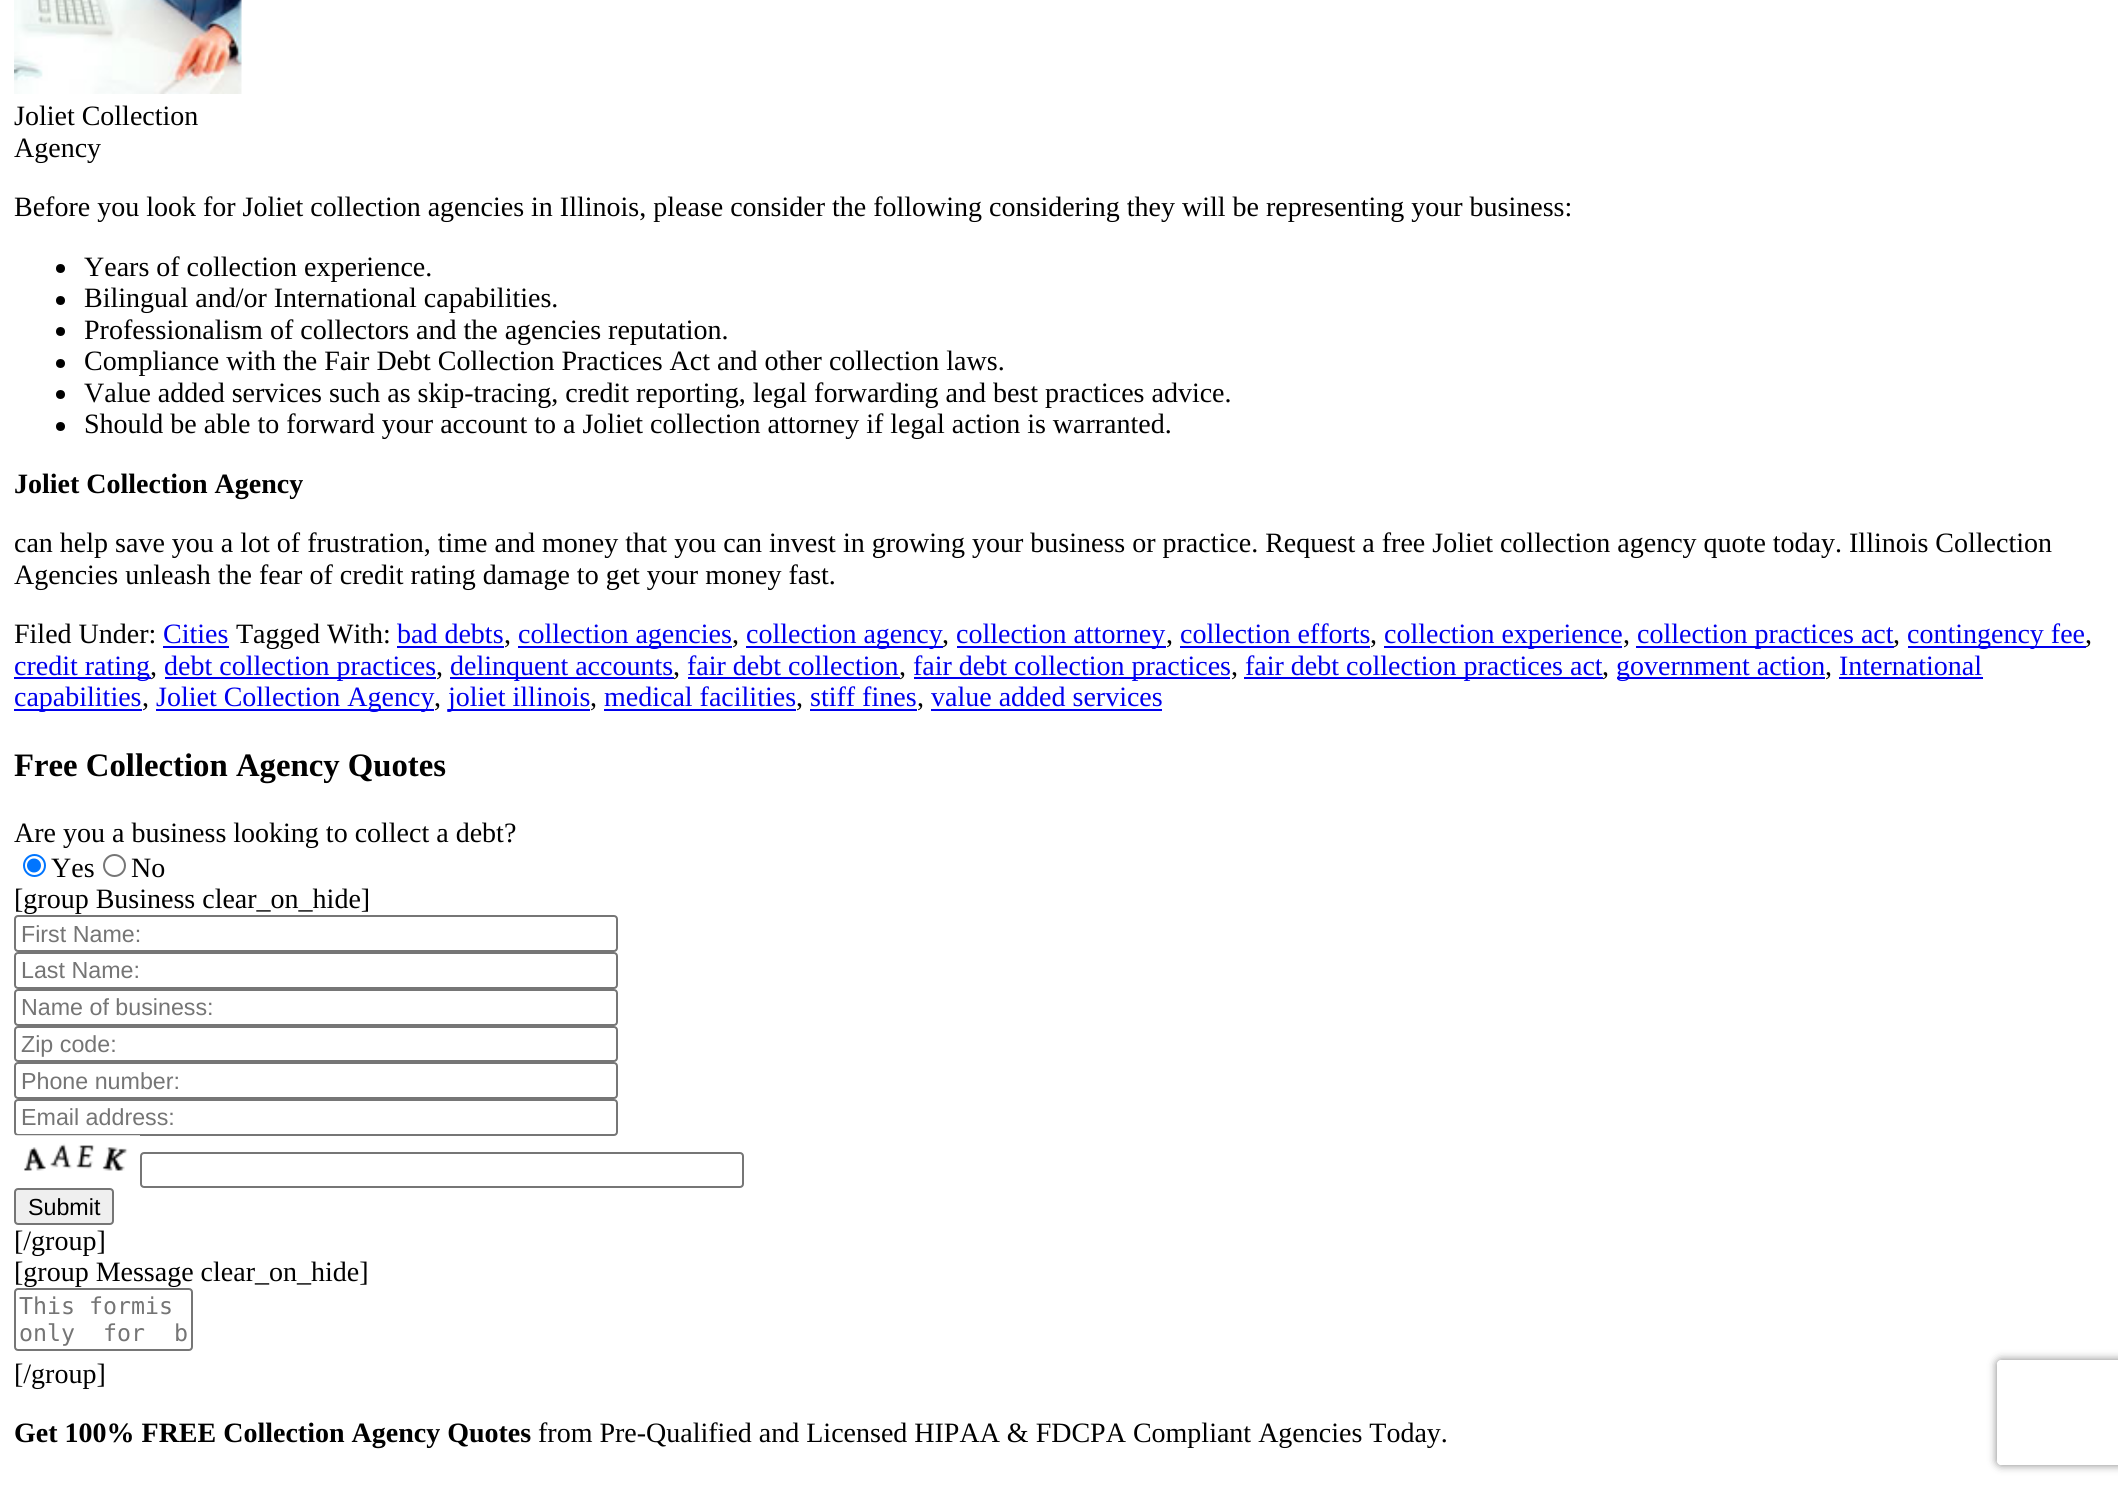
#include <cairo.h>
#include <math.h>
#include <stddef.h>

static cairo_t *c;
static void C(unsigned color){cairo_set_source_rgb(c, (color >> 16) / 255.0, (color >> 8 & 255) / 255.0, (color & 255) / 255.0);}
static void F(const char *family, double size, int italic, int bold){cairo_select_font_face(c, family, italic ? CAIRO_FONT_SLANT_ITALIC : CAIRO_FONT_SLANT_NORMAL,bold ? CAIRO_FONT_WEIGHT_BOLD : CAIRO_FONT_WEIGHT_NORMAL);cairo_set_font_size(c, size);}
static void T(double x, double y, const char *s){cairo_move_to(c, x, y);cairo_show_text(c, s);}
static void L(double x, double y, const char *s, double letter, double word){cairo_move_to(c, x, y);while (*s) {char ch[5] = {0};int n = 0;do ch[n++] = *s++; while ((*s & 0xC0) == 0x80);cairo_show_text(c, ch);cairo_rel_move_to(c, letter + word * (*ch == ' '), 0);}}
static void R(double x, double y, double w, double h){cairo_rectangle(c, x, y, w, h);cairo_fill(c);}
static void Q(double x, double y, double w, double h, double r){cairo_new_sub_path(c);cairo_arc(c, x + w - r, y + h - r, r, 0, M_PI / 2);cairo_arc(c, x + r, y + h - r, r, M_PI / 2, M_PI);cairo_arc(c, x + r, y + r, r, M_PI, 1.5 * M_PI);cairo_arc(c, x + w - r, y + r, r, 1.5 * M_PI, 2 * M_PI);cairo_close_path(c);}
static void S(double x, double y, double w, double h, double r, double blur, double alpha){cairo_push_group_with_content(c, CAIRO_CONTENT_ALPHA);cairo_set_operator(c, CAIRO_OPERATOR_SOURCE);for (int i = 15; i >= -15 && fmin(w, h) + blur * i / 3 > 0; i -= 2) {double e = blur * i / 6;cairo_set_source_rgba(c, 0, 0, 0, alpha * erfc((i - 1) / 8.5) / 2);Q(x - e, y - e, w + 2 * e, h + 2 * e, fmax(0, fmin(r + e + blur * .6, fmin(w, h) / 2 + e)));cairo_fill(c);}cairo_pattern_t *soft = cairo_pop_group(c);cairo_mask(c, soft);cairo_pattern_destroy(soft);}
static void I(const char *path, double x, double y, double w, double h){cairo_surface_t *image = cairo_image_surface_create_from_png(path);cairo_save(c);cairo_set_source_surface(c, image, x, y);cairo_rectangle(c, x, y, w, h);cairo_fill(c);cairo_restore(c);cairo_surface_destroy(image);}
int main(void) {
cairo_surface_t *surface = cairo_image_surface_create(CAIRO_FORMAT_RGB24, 2118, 1488);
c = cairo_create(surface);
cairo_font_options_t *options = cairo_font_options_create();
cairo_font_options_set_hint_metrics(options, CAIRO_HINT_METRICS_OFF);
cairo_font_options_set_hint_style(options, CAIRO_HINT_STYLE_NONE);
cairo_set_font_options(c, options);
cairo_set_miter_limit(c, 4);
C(0xffffff);
cairo_paint(c);
I("1.png",14,0,228,94);
F("Liberation Serif",28,0,0);
C(0x000000);
T(14,125,"Joliet Collection");
T(14,157,"Agency");
T(14,216,"Before you look for Joliet collection agencies in Illinois, please consider the following considering they will be representing your business:");
cairo_new_path(c);
cairo_arc(c,60.5,268.5,4.5,0,2 * M_PI);
cairo_fill(c);
T(84,276,"Years of collection experience.");
cairo_new_path(c);
cairo_arc(c,60.5,300.5,4.5,0,2 * M_PI);
cairo_fill(c);
T(84,307,"Bilingual and/or International capabilities.");
cairo_new_path(c);
cairo_arc(c,60.5,331.5,4.5,0,2 * M_PI);
cairo_fill(c);
T(84,339,"Professionalism of collectors and the agencies reputation.");
cairo_new_path(c);
cairo_arc(c,60.5,363.5,4.5,0,2 * M_PI);
cairo_fill(c);
T(84,370,"Compliance with the Fair Debt Collection Practices Act and other collection laws.");
cairo_new_path(c);
cairo_arc(c,60.5,394.5,4.5,0,2 * M_PI);
cairo_fill(c);
T(84,402,"Value added services such as skip-tracing, credit reporting, legal forwarding and best practices advice.");
cairo_new_path(c);
cairo_arc(c,60.5,426.5,4.5,0,2 * M_PI);
cairo_fill(c);
T(84,433,"Should be able to forward your account to a Joliet collection attorney if legal action is warranted.");
F("Liberation Serif",28,0,1);
T(14,493,"Joliet Collection Agency");
F("Liberation Serif",28,0,0);
T(14,552,"can help save you a lot of frustration, time and money that you can invest in growing your business or practice. Request a free Joliet collection agency quote today. Illinois Collection");
T(14,584,"Agencies unleash the fear of credit rating damage to get your money fast.");
T(14,643,"Filed Under:");
C(0x0000ee);
T(163,643,"Cities");
R(163,646,66,2);
C(0x000000);
T(236,643,"Tagged With:");
C(0x0000ee);
T(397,643,"bad debts");
C(0x000000);
T(504,643,",");
C(0x0000ee);
R(397,646,107,2);
R(518,646,214,2);
T(518,643,"collection agencies");
C(0x000000);
T(732,643,",");
C(0x0000ee);
R(746,646,197,2);
T(746,643,"collection agency");
C(0x000000);
T(942,643,",");
C(0x0000ee);
R(957,646,209,2);
T(956,643,"collection attorney");
C(0x000000);
T(1166,643,",");
C(0x0000ee);
T(1180,643,"collection efforts");
C(0x000000);
T(1370,643,",");
C(0x0000ee);
R(1180,646,190,2);
R(1384,646,238,2);
T(1384,643,"collection experience");
C(0x000000);
T(1623,643,",");
C(0x0000ee);
R(1636,646,258,2);
T(1637,643,"collection practices act");
C(0x000000);
T(1893,643,",");
C(0x0000ee);
R(1908,646,178,2);
T(1907,643,"contingency fee");
C(0x000000);
T(2085,643,",");
C(0x0000ee);
R(14,677,137,2);
T(14,675,"credit rating");
C(0x000000);
T(150,675,",");
C(0x0000ee);
R(165,677,271,2);
T(164,675,"debt collection practices");
C(0x000000);
T(436,675,",");
C(0x0000ee);
R(450,677,224,2);
T(450,675,"delinquent accounts");
C(0x000000);
T(673,675,",");
C(0x0000ee);
T(687,675,"fair debt collection");
R(688,677,212,2);
C(0x000000);
T(899,675,",");
C(0x0000ee);
R(914,677,316,2);
T(913,675,"fair debt collection practices");
C(0x000000);
T(1231,675,",");
C(0x0000ee);
R(1244,677,359,2);
T(1245,675,"fair debt collection practices act");
C(0x000000);
T(1602,675,",");
C(0x0000ee);
R(1617,677,208,2);
T(1616,675,"government action");
C(0x000000);
T(1825,675,",");
C(0x0000ee);
R(1839,677,144,2);
T(1839,675,"International");
R(14,709,128,2);
T(14,706,"capabilities");
C(0x000000);
T(142,706,",");
C(0x0000ee);
R(156,709,278,2);
T(156,706,"Joliet Collection Agency");
C(0x000000);
T(434,706,",");
C(0x0000ee);
R(448,709,142,2);
T(448,706,"joliet illinois");
C(0x000000);
T(590,706,",");
C(0x0000ee);
T(604,706,"medical facilities");
C(0x000000);
T(796,706,",");
C(0x0000ee);
R(604,709,192,2);
T(810,706,"stiff fines");
C(0x000000);
T(917,706,",");
C(0x0000ee);
R(810,709,107,2);
R(931,709,231,2);
T(931,706,"value added services");
F("Liberation Serif",32.75,0,1);
C(0x000000);
T(14,776,"Free Collection Agency Quotes");
F("Liberation Serif",28,0,0);
T(14,842,"Are you a business looking to collect a debt?");
cairo_new_path(c);
cairo_arc(c,34.5,865.5,10.5,0,2 * M_PI);
C(0x0075ff);
cairo_stroke(c);
cairo_arc(c,34,865.5,7,0,2 * M_PI);
cairo_fill(c);
C(0x000000);
T(51,877,"Yes");
cairo_new_path(c);
cairo_arc(c,114.5,865.5,10.5,0,2 * M_PI);
C(0x767676);
cairo_stroke(c);
C(0x000000);
T(131,877,"No");
T(14,908,"[group Business clear_on_hide]");
Q(15,916,602,35,3);
C(0x767676);
cairo_stroke(c);
F("Liberation Sans",23.25,0,0);
C(0x757575);
T(21,942,"First Name:");
Q(15,953,602,35,3);
C(0x767676);
cairo_stroke(c);
C(0x757575);
T(21,978,"Last Name:");
Q(15,990,602,35,3);
C(0x767676);
cairo_stroke(c);
C(0x757575);
T(21,1015,"Name of business:");
Q(15,1027,602,34,3);
C(0x767676);
cairo_stroke(c);
C(0x757575);
T(21,1052,"Zip code:");
Q(15,1063,602,35,3);
C(0x767676);
cairo_stroke(c);
C(0x757575);
T(21,1089,"Phone number:");
Q(15,1100,602,35,3);
C(0x767676);
cairo_stroke(c);
C(0x757575);
T(21,1125,"Email address:");
I("2.png",15,1135,125,36);
Q(141,1153,602,34,3);
C(0x767676);
cairo_stroke(c);
C(0xefefef);
Q(15,1189,98,35,3);
cairo_fill_preserve(c);
C(0x767676);
cairo_stroke(c);
C(0x000000);
T(28,1215,"Submit");
F("Liberation Serif",28,0,0);
T(14,1250,"[/group]");
T(14,1281,"[group Message clear_on_hide]");
Q(15,1289,177,61,3);
C(0x767676);
cairo_stroke(c);
F("DejaVu Sans Mono",23.25,0,0);
C(0x757575);
T(19,1314,"This formis");
L(19,1341,"only for",0,14);
T(174,1341,"b");
F("Liberation Serif",28,0,0);
C(0x000000);
T(14,1383,"[/group]");
F("Liberation Serif",28,0,1);
T(14,1442,"Get 100% FREE Collection Agency Quotes");
F("Liberation Serif",28,0,0);
T(538,1442,"from Pre-Qualified and Licensed HIPAA & FDCPA Compliant Agencies Today.");
cairo_save(c);
cairo_set_fill_rule(c,CAIRO_FILL_RULE_EVEN_ODD);
cairo_new_path(c);
cairo_move_to(c,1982,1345);
cairo_line_to(c,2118,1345);
cairo_line_to(c,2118,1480);
cairo_line_to(c,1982,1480);
cairo_close_path(c);
cairo_move_to(c,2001,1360);
cairo_line_to(c,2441,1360);
cairo_curve_to(c,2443,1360,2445,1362,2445,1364);
cairo_line_to(c,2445,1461);
cairo_curve_to(c,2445,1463,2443,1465,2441,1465);
cairo_line_to(c,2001,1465);
cairo_curve_to(c,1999,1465,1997,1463,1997,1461);
cairo_line_to(c,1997,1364);
cairo_curve_to(c,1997,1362,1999,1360,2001,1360);
cairo_close_path(c);
cairo_clip(c);
C(0x808080);
S(1997,1360,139,105,4,4.5,1);
cairo_restore(c);
cairo_surface_write_to_png(surface, "o.png");
cairo_font_options_destroy(options);
cairo_destroy(c);
cairo_surface_destroy(surface);
return 0;
}
